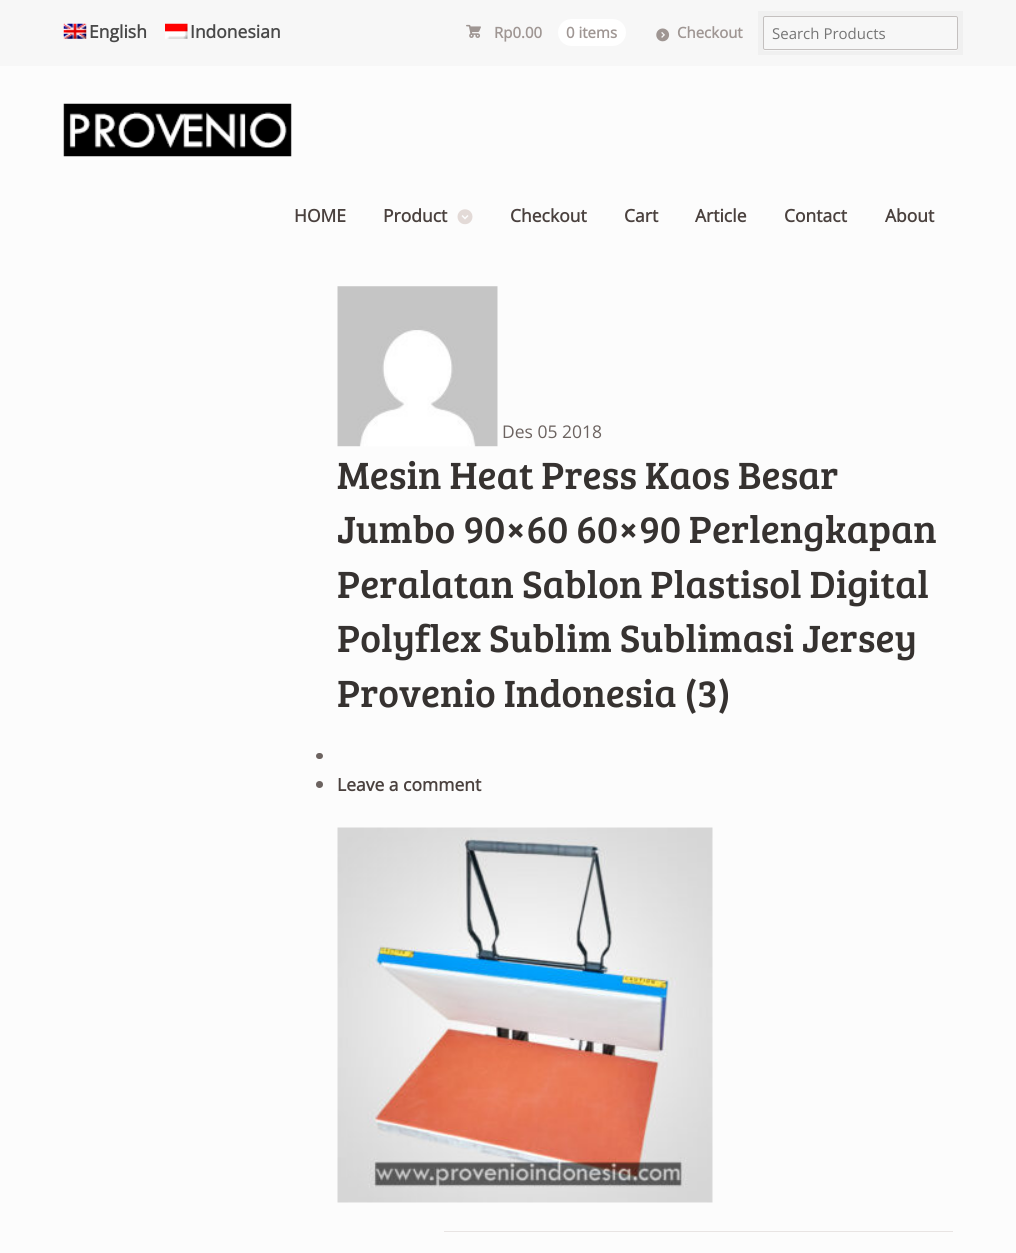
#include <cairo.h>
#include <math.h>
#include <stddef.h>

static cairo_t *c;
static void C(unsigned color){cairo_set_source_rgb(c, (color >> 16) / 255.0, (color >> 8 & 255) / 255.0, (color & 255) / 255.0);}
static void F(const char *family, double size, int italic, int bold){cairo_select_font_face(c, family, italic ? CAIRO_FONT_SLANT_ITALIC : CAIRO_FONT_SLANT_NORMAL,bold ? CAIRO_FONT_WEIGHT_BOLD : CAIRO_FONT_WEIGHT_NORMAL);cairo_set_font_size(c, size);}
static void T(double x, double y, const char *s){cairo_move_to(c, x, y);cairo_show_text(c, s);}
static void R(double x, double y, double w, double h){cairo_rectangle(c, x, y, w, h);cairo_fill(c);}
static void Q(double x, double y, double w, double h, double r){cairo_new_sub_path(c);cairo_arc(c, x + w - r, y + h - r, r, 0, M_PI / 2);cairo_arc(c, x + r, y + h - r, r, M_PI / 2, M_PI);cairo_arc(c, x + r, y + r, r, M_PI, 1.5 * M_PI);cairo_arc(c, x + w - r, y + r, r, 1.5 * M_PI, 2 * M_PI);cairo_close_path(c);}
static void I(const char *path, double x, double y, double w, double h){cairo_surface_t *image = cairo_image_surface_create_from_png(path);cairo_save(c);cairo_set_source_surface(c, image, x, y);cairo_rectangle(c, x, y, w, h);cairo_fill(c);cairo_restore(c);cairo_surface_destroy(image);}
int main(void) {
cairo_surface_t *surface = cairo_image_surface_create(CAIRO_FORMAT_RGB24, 1016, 1253);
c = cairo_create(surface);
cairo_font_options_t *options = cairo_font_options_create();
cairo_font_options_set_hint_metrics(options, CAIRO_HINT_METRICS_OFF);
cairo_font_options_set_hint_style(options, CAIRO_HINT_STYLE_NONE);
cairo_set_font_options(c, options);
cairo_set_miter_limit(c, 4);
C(0xfcfcfc);
cairo_paint(c);
C(0xf7f7f7);
R(0,0,1016,66);
I("1.png",63,23,24,16);
F("Open Sans",17.5,0,1);
C(0x494949);
T(89,38,"English");
I("2.png",165,23,23,16);
T(190,38,"Indonesian");
F("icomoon",15,0,0);
C(0x9f9693);
T(466,38,"£");
F("Open Sans",15,0,1);
T(494,38,"Rp0.00");
C(0xffffff);
Q(558,19,68,27,13.5);
cairo_fill(c);
C(0x9f9693);
T(566,38,"0 items");
I("3.png",656,28,14,14);
T(677,38,"Checkout");
C(0xffffff);
cairo_new_path(c);
cairo_move_to(c,763,49);
cairo_curve_to(c,763,50,764,51,765,51);
cairo_line_to(c,956,51);
cairo_curve_to(c,957,51,958,50,958,49);
cairo_line_to(c,958,20);
cairo_line_to(c,958,19);
cairo_line_to(c,958,48);
cairo_curve_to(c,958,49,957,50,956,50);
cairo_line_to(c,764,50);
cairo_close_path(c);
cairo_fill(c);
cairo_rectangle(c,760.5,13.5,200,39);
cairo_set_source_rgba(c,0,0,0,0.03);
cairo_set_line_width(c,5);
cairo_stroke(c);
Q(763.5,16.5,194,33,1.5);
C(0xc4c0bf);
cairo_set_line_width(c,1);
cairo_stroke(c);
F("Open Sans",15,0,0);
C(0x757575);
T(772,39,"Search Products");
I("4.png",63,103,229,54);
F("Open Sans",17.5,0,1);
C(0x4a413e);
T(294,222,"HOME");
T(383,222,"Product");
I("5.png",457,209,16,16);
T(510,222,"Checkout");
T(624,222,"Cart");
T(695,222,"Article");
T(784,222,"Contact");
T(885,222,"About");
I("6.png",337,286,161,161);
F("Open Sans",17.5,0,0);
C(0x6c6360);
T(502,438,"Des 05 2018");
F("Bree Serif",39.25,0,0);
C(0x363230);
T(337,489,"Mesin Heat Press Kaos Besar");
T(337,543,"Jumbo 90×60 60×90 Perlengkapan");
T(337,598,"Peralatan Sablon Plastisol Digital");
T(337,652,"Polyflex Sublim Sublimasi Jersey");
T(337,707,"Provenio Indonesia (3)");
C(0x6c6360);
Q(316,753,7,6,3);
cairo_fill(c);
cairo_arc(c,319.5,784.5,3.5,0,2 * M_PI);
cairo_fill(c);
F("Open Sans",17.5,0,1);
C(0x4a413e);
T(337,791,"Leave a comment");
I("7.png",337,827,376,376);
C(0xe8e4e3);
R(444,1231,509,1);
cairo_surface_write_to_png(surface, "o.png");
cairo_font_options_destroy(options);
cairo_destroy(c);
cairo_surface_destroy(surface);
return 0;
}
